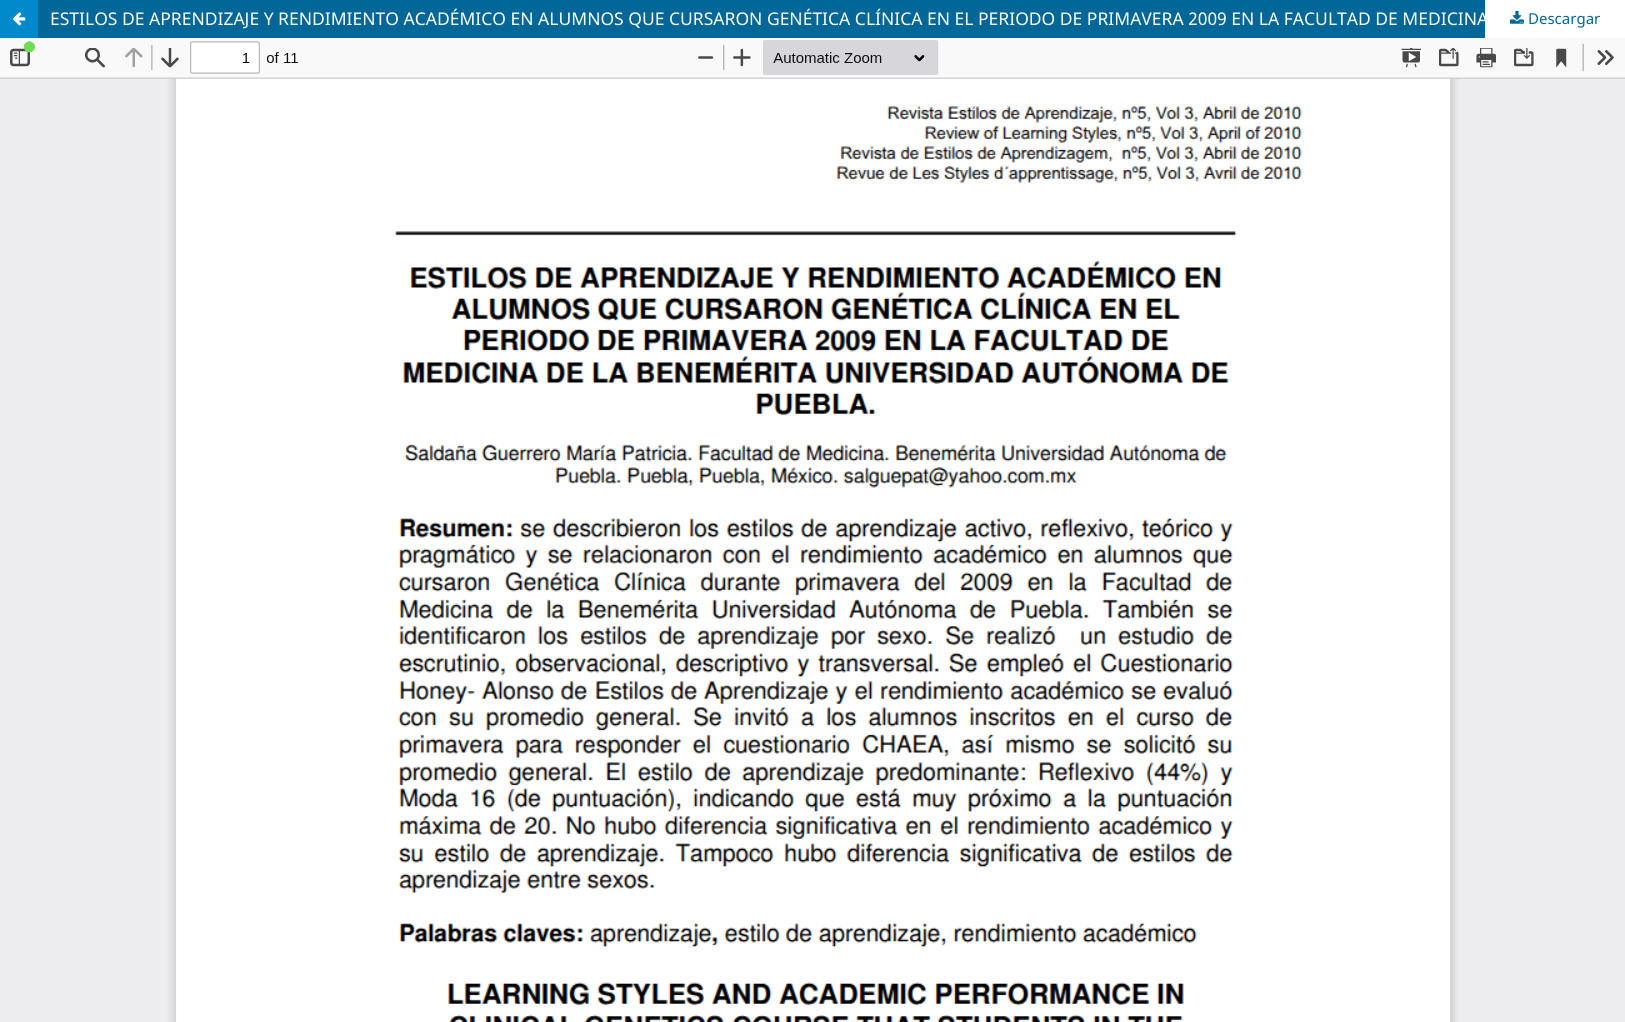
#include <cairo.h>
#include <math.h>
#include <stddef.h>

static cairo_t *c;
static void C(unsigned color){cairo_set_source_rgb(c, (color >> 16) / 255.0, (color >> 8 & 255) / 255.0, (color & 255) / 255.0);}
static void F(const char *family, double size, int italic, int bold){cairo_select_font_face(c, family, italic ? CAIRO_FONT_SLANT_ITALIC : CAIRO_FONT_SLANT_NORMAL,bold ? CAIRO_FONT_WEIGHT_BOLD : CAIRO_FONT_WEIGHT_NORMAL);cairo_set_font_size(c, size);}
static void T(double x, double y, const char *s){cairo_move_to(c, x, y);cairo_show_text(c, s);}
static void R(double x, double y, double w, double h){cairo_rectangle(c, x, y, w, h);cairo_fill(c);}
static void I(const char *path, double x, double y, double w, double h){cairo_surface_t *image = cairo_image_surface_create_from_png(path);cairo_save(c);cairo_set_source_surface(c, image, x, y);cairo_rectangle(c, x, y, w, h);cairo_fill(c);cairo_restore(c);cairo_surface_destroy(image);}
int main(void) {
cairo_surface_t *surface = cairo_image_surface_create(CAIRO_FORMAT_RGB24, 1625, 1022);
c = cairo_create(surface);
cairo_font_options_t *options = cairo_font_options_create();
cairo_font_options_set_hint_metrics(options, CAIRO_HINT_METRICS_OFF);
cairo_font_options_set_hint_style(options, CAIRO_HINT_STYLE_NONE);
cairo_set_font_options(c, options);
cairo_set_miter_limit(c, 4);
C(0xffffff);
cairo_paint(c);
C(0x006798);
R(38,0,1447,38);
C(0x008acb);
R(0,0,38,38);
I("1.png",13,12,13,14);
F("Noto Sans",17.5,0,0);
C(0xffffff);
T(50,25,"ESTILOS DE APRENDIZAJE Y RENDIMIENTO ACADÉMICO EN ALUMNOS QUE CURSARON GENÉTICA CLÍNICA EN EL PERIODO DE PRIMAVERA 2009 EN LA FACULTAD DE MEDICINA");
I("2.png",1510,10,14,14);
F("Noto Sans",15,0,0);
C(0x006798);
T(1528,24,"Descargar");
I("3.png",0,38,1625,984);
cairo_surface_write_to_png(surface, "o.png");
cairo_font_options_destroy(options);
cairo_destroy(c);
cairo_surface_destroy(surface);
return 0;
}
